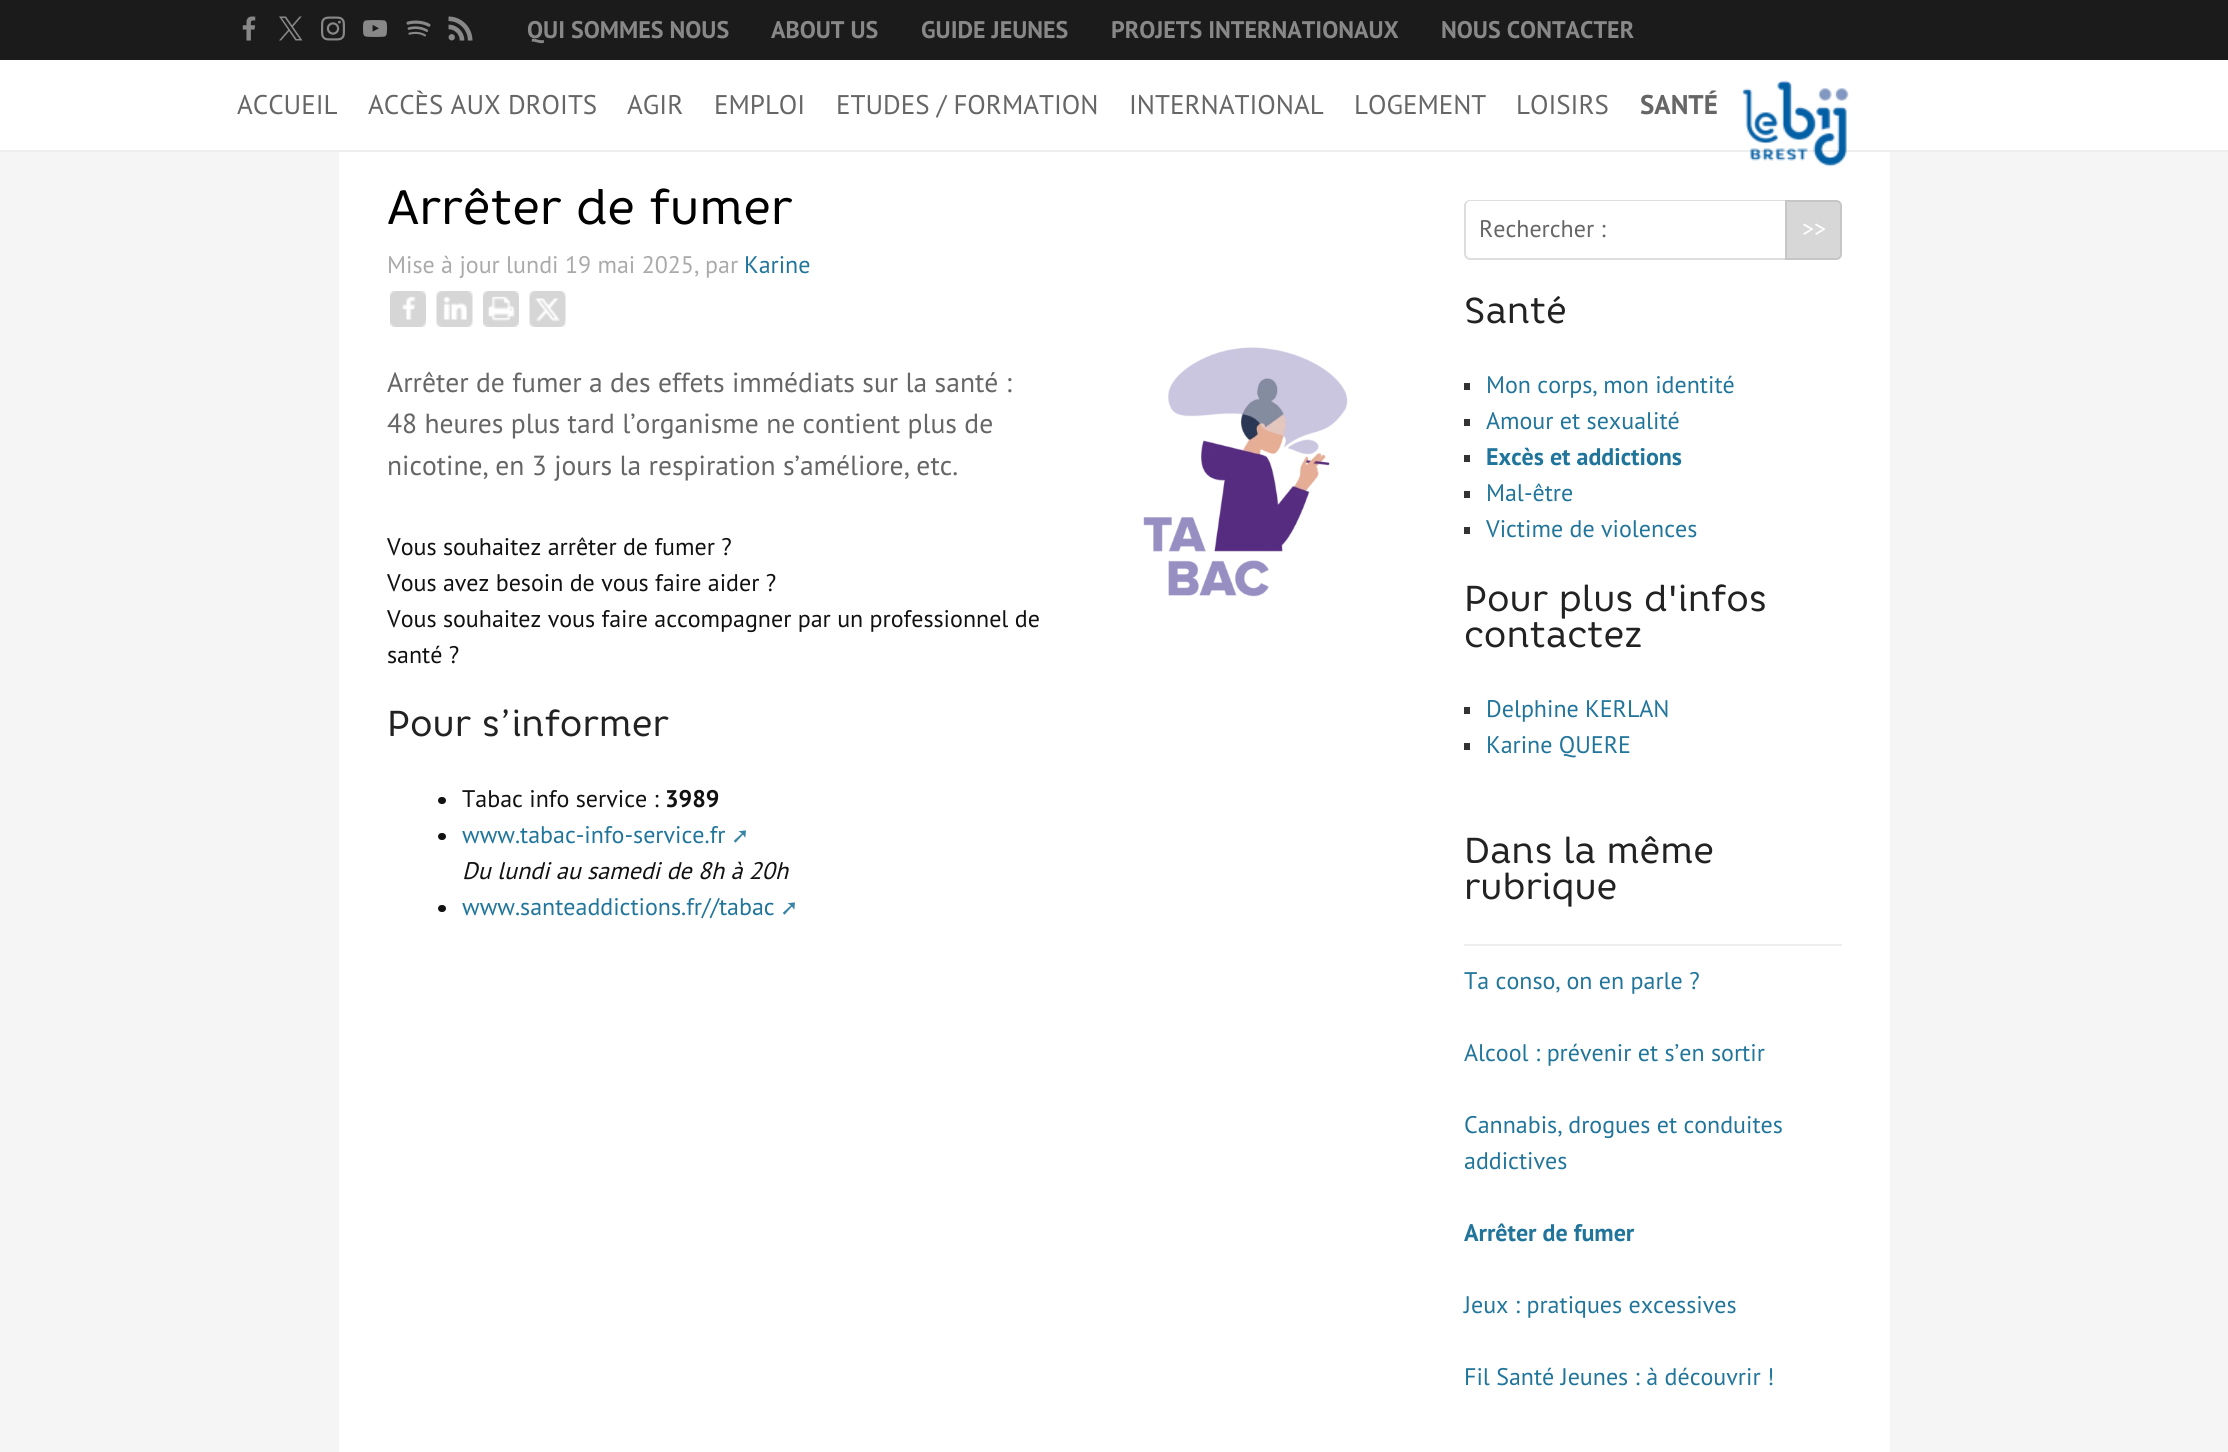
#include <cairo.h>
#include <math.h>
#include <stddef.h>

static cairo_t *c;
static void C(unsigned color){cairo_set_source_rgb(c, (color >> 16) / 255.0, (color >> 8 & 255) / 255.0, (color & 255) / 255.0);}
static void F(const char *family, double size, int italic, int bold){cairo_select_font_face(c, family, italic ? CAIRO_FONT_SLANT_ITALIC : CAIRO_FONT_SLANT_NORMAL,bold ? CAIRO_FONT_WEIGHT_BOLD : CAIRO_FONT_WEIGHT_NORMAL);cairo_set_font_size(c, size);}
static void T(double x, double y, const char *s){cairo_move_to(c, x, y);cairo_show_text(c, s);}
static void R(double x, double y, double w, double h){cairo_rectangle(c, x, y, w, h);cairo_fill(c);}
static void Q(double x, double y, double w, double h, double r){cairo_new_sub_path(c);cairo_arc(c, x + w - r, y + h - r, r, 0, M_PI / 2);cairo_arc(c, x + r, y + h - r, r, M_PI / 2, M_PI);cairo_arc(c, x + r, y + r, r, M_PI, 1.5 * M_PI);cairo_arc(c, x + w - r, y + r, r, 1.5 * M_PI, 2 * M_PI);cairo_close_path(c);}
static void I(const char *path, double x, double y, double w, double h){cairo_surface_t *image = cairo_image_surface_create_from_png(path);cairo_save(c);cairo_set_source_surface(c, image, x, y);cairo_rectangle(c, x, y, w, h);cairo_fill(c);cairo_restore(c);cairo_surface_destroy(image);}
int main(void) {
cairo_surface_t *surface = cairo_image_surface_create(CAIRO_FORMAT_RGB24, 2228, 1452);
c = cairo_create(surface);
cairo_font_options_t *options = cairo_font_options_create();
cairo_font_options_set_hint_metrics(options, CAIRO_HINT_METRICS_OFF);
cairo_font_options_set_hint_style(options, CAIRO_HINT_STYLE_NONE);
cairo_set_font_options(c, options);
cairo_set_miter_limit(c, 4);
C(0xf5f5f5);
cairo_paint(c);
C(0x1b1b1b);
R(0,0,2228,60);
I("1.png",242,16,14,25);
I("2.png",279,16,24,25);
I("3.png",321,16,24,25);
I("4.png",363,20,24,17);
I("5.png",406,20,25,17);
I("6.png",448,16,25,25);
F("PT Sans",24,0,1);
C(0x888888);
T(527,38,"QUI SOMMES NOUS");
T(771,38,"ABOUT US");
T(921,38,"GUIDE JEUNES");
T(1111,38,"PROJETS INTERNATIONAUX");
T(1441,38,"NOUS CONTACTER");
C(0xffffff);
R(0,60,2228,90);
C(0xeeeeee);
R(0,150,2228,2);
C(0xffffff);
R(339,152,1551,1300);
I("7.png",1742,80,107,87);
F("PT Sans",27,0,0);
C(0x666666);
T(237,114,"ACCUEIL");
T(368,114,"ACCÈS AUX DROITS");
T(627,114,"AGIR");
T(714,114,"EMPLOI");
T(836,114,"ETUDES / FORMATION");
T(1129,114,"INTERNATIONAL");
T(1354,114,"LOGEMENT");
T(1516,114,"LOISIRS");
F("PT Sans",27,0,1);
T(1640,114,"SANTÉ");
F("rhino",48,0,0);
C(0x000000);
T(387,224,"Arrêter de fumer");
F("PT Sans",24,0,0);
C(0xaaaaaa);
T(387,273,"Mise à jour lundi 19 mai 2025, par");
C(0x21759b);
T(744,273,"Karine");
I("8.png",390,291,36,36);
I("9.png",436,291,37,36);
I("10.png",483,291,36,36);
I("11.png",529,291,37,36);
I("12.png",1143,347,205,250);
F("PT Sans",27.6,0,0);
C(0x666666);
T(387,392,"Arrêter de fumer a des effets immédiats sur la santé :");
T(387,433,"48 heures plus tard l’organisme ne contient plus de");
T(387,475,"nicotine, en 3 jours la respiration s’améliore, etc.");
F("PT Sans",24,0,0);
C(0x111111);
T(387,555,"Vous souhaitez arrêter de fumer ?");
T(387,591,"Vous avez besoin de vous faire aider ?");
T(387,627,"Vous souhaitez vous faire accompagner par un professionnel de");
T(387,663,"santé ?");
F("rhino",36,0,0);
C(0x222222);
T(387,736,"Pour s’informer");
C(0x111111);
Q(438,797,8,7,3.5);
cairo_fill(c);
F("PT Sans",24,0,0);
T(462,807,"Tabac info service :");
F("PT Sans",24,0,1);
T(665,807,"3989");
Q(438,833,8,7,3.5);
cairo_fill(c);
F("PT Sans",24,0,0);
C(0x21759b);
T(462,843,"www.tabac-info-service.fr");
F("DejaVu Sans",22,0,0);
C(0x3783a5);
T(731,843,"➚");
F("PT Sans",24,1,0);
C(0x111111);
T(462,879,"Du lundi au samedi de 8h à 20h");
Q(438,905,8,7,3.5);
cairo_fill(c);
F("PT Sans",24,0,0);
C(0x21759b);
T(462,915,"www.santeaddictions.fr//tabac");
F("DejaVu Sans",22,0,0);
C(0x3783a5);
T(780,915,"➚");
C(0xdddddd);
cairo_set_fill_rule(c,CAIRO_FILL_RULE_EVEN_ODD);
cairo_new_path(c);
cairo_move_to(c,1470,200);
cairo_line_to(c,1785,200);
cairo_line_to(c,1785,260);
cairo_line_to(c,1470,260);
cairo_curve_to(c,1467,260,1464,257,1464,254);
cairo_line_to(c,1464,206);
cairo_curve_to(c,1464,202,1467,200,1470,200);
cairo_close_path(c);
cairo_move_to(c,1470,201);
cairo_line_to(c,1785,201);
cairo_line_to(c,1785,258);
cairo_line_to(c,1470,258);
cairo_curve_to(c,1468,258,1466,256,1466,254);
cairo_line_to(c,1466,206);
cairo_curve_to(c,1466,203,1468,201,1470,201);
cairo_close_path(c);
cairo_fill(c);
F("PT Sans",24,0,0);
C(0x666666);
T(1479,237,"Rechercher :");
C(0xd7d7d7);
cairo_new_path(c);
cairo_move_to(c,1785,200);
cairo_line_to(c,1836,200);
cairo_curve_to(c,1839.5,200,1842,202.5,1842,206);
cairo_line_to(c,1842,254);
cairo_curve_to(c,1842,257.5,1839.5,260,1836,260);
cairo_line_to(c,1785,260);
cairo_close_path(c);
cairo_fill(c);
cairo_new_path(c);
cairo_move_to(c,1786,201);
cairo_line_to(c,1836,201);
cairo_curve_to(c,1839,201,1841,203,1841,206);
cairo_line_to(c,1841,254);
cairo_curve_to(c,1841,257,1839,259,1836,259);
cairo_line_to(c,1786,259);
cairo_close_path(c);
cairo_set_source_rgba(c,0,0,0,0.08);
cairo_stroke(c);
C(0xffffff);
T(1802,237,">>");
F("rhino",36,0,0);
C(0x222222);
T(1464,323,"Santé");
C(0x333333);
R(1464,383,6,7);
F("PT Sans",24,0,0);
C(0x21759b);
T(1486,393,"Mon corps, mon identité");
C(0x333333);
R(1464,419,6,7);
C(0x21759b);
T(1486,429,"Amour et sexualité");
C(0x333333);
R(1464,455,6,7);
F("PT Sans",24,0,1);
C(0x21759b);
T(1486,465,"Excès et addictions");
C(0x333333);
R(1464,491,6,7);
F("PT Sans",24,0,0);
C(0x21759b);
T(1486,501,"Mal-être");
C(0x333333);
R(1464,527,6,7);
C(0x21759b);
T(1486,537,"Victime de violences");
F("rhino",36,0,0);
C(0x222222);
T(1464,611,"Pour plus d'infos");
T(1464,647,"contactez");
C(0x333333);
R(1464,707,6,7);
F("PT Sans",24,0,0);
C(0x21759b);
T(1486,717,"Delphine KERLAN");
C(0x333333);
R(1464,743,6,7);
C(0x21759b);
T(1486,753,"Karine QUERE");
F("rhino",36,0,0);
C(0x222222);
T(1464,863,"Dans la même");
T(1464,899,"rubrique");
C(0xeeeeee);
R(1464,944,378,2);
F("PT Sans",24,0,0);
C(0x21759b);
T(1464,989,"Ta conso, on en parle ?");
T(1464,1061,"Alcool : prévenir et s’en sortir");
T(1464,1133,"Cannabis, drogues et conduites");
T(1464,1169,"addictives");
F("PT Sans",24,0,1);
T(1464,1241,"Arrêter de fumer");
F("PT Sans",24,0,0);
T(1464,1313,"Jeux : pratiques excessives");
T(1464,1385,"Fil Santé Jeunes : à découvrir !");
cairo_surface_write_to_png(surface, "o.png");
cairo_font_options_destroy(options);
cairo_destroy(c);
cairo_surface_destroy(surface);
return 0;
}
